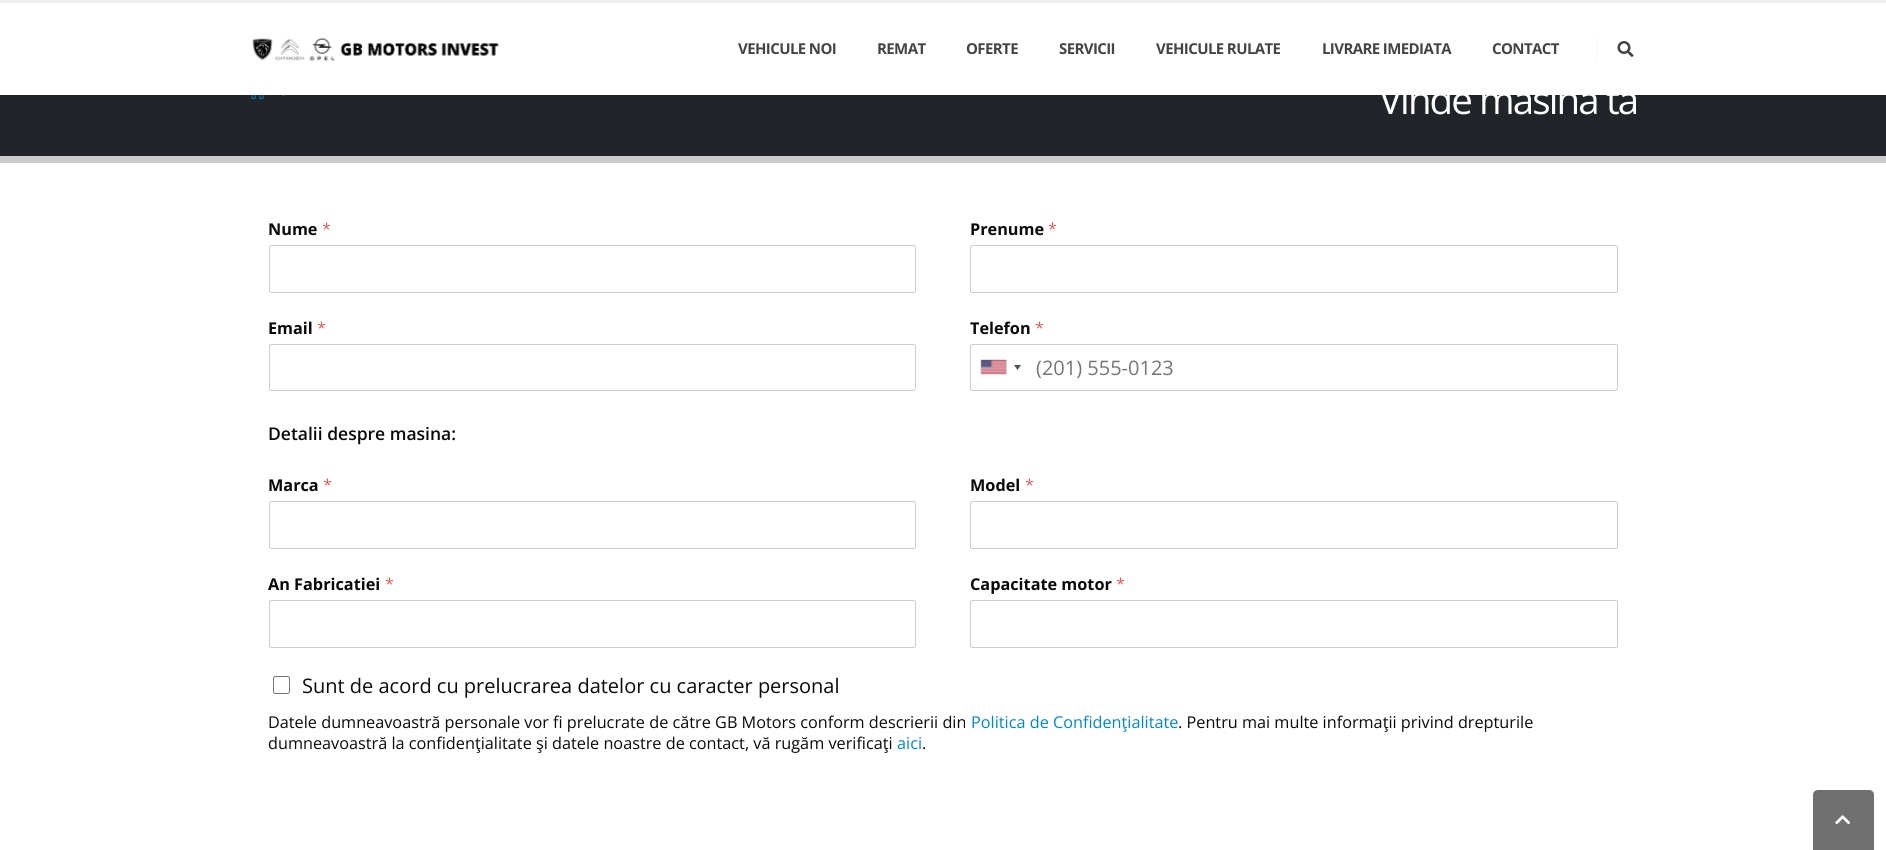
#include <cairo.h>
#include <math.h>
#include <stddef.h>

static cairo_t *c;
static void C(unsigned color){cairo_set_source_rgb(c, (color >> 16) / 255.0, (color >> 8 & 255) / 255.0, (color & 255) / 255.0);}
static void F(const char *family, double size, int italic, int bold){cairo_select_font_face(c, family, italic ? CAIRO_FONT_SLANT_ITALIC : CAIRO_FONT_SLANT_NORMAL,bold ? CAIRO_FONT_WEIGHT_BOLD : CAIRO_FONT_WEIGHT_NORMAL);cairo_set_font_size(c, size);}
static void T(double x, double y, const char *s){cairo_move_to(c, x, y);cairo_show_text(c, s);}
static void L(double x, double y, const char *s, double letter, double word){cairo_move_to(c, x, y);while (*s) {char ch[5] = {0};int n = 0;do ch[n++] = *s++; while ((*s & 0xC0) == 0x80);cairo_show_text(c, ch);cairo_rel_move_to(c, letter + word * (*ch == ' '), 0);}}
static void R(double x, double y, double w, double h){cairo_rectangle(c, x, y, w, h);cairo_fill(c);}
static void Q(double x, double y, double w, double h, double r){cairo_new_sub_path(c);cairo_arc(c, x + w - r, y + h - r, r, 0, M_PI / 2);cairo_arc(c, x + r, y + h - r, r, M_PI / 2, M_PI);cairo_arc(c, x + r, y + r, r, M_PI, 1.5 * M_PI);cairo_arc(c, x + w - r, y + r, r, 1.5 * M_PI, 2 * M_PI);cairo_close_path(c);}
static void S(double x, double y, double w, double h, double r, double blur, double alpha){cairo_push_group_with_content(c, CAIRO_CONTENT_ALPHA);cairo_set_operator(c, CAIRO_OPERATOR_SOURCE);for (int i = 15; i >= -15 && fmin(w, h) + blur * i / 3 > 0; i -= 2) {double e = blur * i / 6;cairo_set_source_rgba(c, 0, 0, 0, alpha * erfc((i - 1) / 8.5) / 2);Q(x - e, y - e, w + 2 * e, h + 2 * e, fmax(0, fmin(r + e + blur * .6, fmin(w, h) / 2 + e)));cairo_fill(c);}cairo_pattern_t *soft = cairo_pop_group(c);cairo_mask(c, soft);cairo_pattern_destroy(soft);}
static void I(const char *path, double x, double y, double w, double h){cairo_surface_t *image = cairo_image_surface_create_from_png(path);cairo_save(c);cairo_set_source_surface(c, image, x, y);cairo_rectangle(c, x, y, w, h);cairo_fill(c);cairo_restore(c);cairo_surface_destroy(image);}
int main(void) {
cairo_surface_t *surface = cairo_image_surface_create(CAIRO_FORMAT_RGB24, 1886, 850);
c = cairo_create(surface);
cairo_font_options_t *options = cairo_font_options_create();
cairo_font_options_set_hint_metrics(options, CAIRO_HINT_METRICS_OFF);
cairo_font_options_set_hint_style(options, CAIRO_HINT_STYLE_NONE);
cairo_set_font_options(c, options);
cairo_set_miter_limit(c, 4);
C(0xffffff);
cairo_paint(c);
C(0x212529);
R(0,95,1886,61);
I("3.png",251,95,13,4);
I("4.png",282,95,3,1);
C(0x000000);
S(0,0,1886,95,0,2,.06);
C(0xffffff);
R(0,3,1886,92);
C(0xededed);
R(0,0,1886,3);
I("1.png",252,37,247,24);
F("Open Sans",15,0,1);
C(0x444444);
L(738,54,"VEHICULE NOI",-.6,0);
L(877,54,"REMAT",-.6,0);
L(966,54,"OFERTE",-.6,0);
L(1059,54,"SERVICII",-.6,0);
L(1156,54,"VEHICULE RULATE",-.6,0);
L(1322,54,"LIVRARE IMEDIATA",-.6,0);
L(1492,54,"CONTACT",-.6,0);
C(0xf5f5f5);
R(1596,39,1,20);
I("2.png",1617,41,17,16);
C(0xcccccc);
R(0,156,1886,7);
F("Open Sans",38.5,0,0);
C(0xffffff);
L(1379,114,"Vinde masina ta",-1.9,0);
F("Open Sans",16.25,0,1);
C(0x0a0a0a);
T(268,235,"Nume");
F("Open Sans Light",16.25,0,0);
C(0xff0000);
T(322,235,"*");
Q(269.5,245.5,646,47,2);
C(0xcccccc);
cairo_set_line_width(c,1);
cairo_stroke(c);
F("Open Sans",16.25,0,1);
C(0x0a0a0a);
T(970,235,"Prenume");
F("Open Sans Light",16.25,0,0);
C(0xff0000);
T(1048,235,"*");
Q(970.5,245.5,647,47,2);
C(0xcccccc);
cairo_stroke(c);
F("Open Sans",16.25,0,1);
C(0x0a0a0a);
T(268,334,"Email");
F("Open Sans Light",16.25,0,0);
C(0xff0000);
T(317,334,"*");
Q(269.5,344.5,646,46,2);
C(0xcccccc);
cairo_stroke(c);
F("Open Sans",16.25,0,1);
C(0x0a0a0a);
T(970,334,"Telefon");
F("Open Sans Light",16.25,0,0);
C(0xff0000);
T(1035,334,"*");
Q(970.5,344.5,647,46,2);
C(0xcccccc);
cairo_stroke(c);
C(0x888888);
S(981,360,25,14,0,.5,1);
C(0xdbdbdb);
R(981,360,25,14);
I("5.png",981,360,26,14);
C(0x555555);
cairo_new_path(c);
cairo_move_to(c,1014,365);
cairo_line_to(c,1021,365);
cairo_line_to(c,1017.5,370);
cairo_close_path(c);
cairo_fill(c);
F("Open Sans",20,0,0);
C(0x757575);
T(1036,375,"(201) 555-0123");
F("Open Sans SemiBold",17.5,0,0);
C(0x0a0a0a);
T(268,440,"Detalii despre masina:");
F("Open Sans",16.25,0,1);
T(268,491,"Marca");
F("Open Sans Light",16.25,0,0);
C(0xff0000);
T(323,491,"*");
Q(269.5,501.5,646,47,2);
C(0xcccccc);
cairo_stroke(c);
F("Open Sans",16.25,0,1);
C(0x0a0a0a);
T(970,491,"Model");
F("Open Sans Light",16.25,0,0);
C(0xff0000);
T(1025,491,"*");
Q(970.5,501.5,647,47,2);
C(0xcccccc);
cairo_stroke(c);
F("Open Sans",16.25,0,1);
C(0x0a0a0a);
T(268,590,"An Fabricatiei");
F("Open Sans Light",16.25,0,0);
C(0xff0000);
T(385,590,"*");
Q(269.5,600.5,646,47,2);
C(0xcccccc);
cairo_stroke(c);
F("Open Sans",16.25,0,1);
C(0x0a0a0a);
T(970,590,"Capacitate motor");
F("Open Sans Light",16.25,0,0);
C(0xff0000);
T(1116,590,"*");
Q(970.5,600.5,647,47,2);
C(0xcccccc);
cairo_stroke(c);
Q(273.5,676.5,16,17,2);
C(0x767676);
cairo_stroke(c);
F("Open Sans",20,0,0);
C(0x0a0a0a);
T(302,693,"Sunt de acord cu prelucrarea datelor cu caracter personal");
F("Open Sans",16.25,0,0);
T(268,728,"Datele dumneavoastră personale vor fi prelucrate de către GB Motors conform descrierii din");
C(0x0088cc);
T(971,728,"Politica de Confidenţialitate");
C(0x0a0a0a);
T(1178,728,". Pentru mai multe informaţii privind drepturile");
T(268,749,"dumneavoastră la confidenţialitate şi datele noastre de contact, vă rugăm verificaţi");
C(0x0088cc);
T(897,749,"aici");
C(0x0a0a0a);
T(922,749,".");
C(0x707070);
cairo_new_path(c);
cairo_move_to(c,1818,790);
cairo_line_to(c,1869,790);
cairo_curve_to(c,1872,790,1874,792,1874,795);
cairo_line_to(c,1874,850);
cairo_line_to(c,1813,850);
cairo_line_to(c,1813,795);
cairo_curve_to(c,1813,792,1815,790,1818,790);
cairo_close_path(c);
cairo_fill(c);
I("6.png",1835,815,15,10);
cairo_surface_write_to_png(surface, "o.png");
cairo_font_options_destroy(options);
cairo_destroy(c);
cairo_surface_destroy(surface);
return 0;
}
